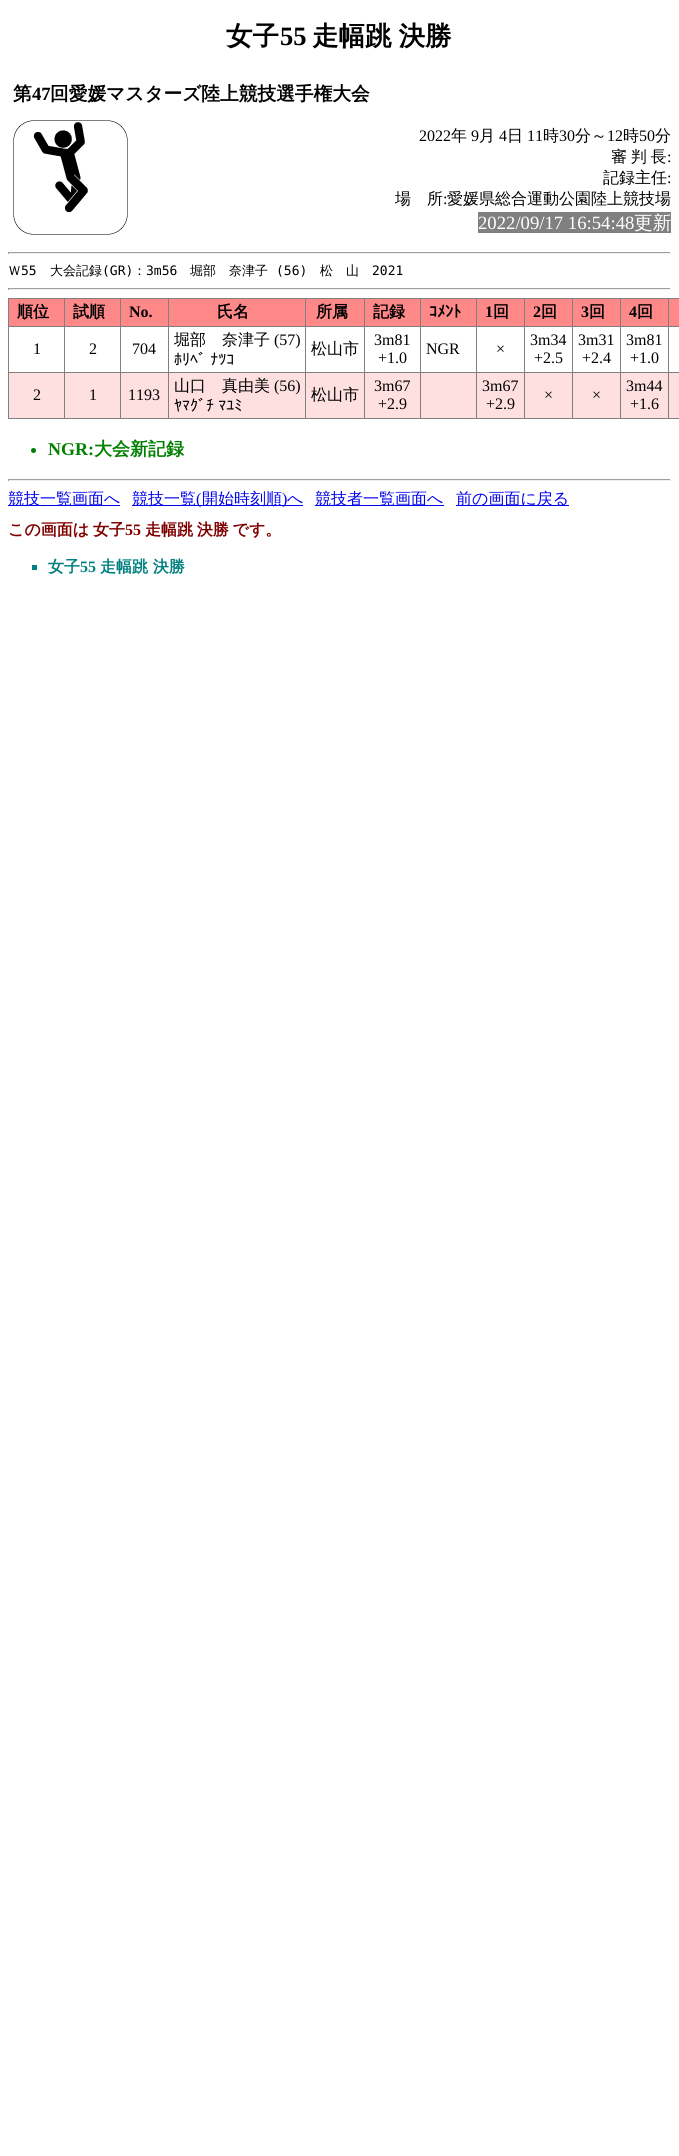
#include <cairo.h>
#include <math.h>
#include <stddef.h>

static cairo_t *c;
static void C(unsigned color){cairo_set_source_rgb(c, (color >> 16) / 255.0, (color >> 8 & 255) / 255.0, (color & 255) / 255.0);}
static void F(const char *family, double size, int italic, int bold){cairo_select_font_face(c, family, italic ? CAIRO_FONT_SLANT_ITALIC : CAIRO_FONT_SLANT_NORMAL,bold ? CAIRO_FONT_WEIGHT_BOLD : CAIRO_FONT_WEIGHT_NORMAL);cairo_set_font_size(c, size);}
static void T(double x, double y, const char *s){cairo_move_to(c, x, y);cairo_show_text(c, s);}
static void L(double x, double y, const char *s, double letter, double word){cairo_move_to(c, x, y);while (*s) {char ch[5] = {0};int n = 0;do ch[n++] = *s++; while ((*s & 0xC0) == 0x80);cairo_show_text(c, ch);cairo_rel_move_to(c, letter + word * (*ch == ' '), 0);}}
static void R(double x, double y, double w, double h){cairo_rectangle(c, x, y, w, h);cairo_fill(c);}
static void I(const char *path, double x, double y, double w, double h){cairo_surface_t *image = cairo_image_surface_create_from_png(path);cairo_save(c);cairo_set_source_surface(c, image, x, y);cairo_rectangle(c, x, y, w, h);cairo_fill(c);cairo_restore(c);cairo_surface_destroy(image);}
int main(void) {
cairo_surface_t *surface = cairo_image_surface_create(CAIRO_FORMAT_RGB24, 679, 2156);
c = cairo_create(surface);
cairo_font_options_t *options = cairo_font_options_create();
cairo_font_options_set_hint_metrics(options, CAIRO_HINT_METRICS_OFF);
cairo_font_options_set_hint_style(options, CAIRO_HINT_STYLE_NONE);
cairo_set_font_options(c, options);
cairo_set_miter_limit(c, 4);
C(0xffffff);
cairo_paint(c);
F("WenQuanYi Zen Hei",26.5,0,1);
C(0x000000);
T(226,45,"女子");
F("Liberation Serif",26.5,0,1);
T(280,45,"55");
F("WenQuanYi Zen Hei",26.5,0,1);
L(312,45,"走幅跳 決勝",0,-1);
F("WenQuanYi Zen Hei",18.7,0,1);
T(13,100,"第");
F("Liberation Serif",18.7,0,1);
T(32,100,"47");
F("WenQuanYi Zen Hei",18.7,0,1);
T(50,100,"回愛媛マスターズ陸上競技選手権大会");
I("1.png",13,120,115,115);
F("Liberation Serif",16,0,0);
T(419,141,"2022");
F("WenQuanYi Zen Hei Medium",16,0,0);
T(451,141,"年");
F("Liberation Serif",16,0,0);
T(471,141,"9");
F("WenQuanYi Zen Hei Medium",16,0,0);
T(479,141,"月");
F("Liberation Serif",16,0,0);
T(499,141,"4");
F("WenQuanYi Zen Hei Medium",16,0,0);
T(507,141,"日");
F("Liberation Serif",16,0,0);
T(527,141,"11");
F("WenQuanYi Zen Hei Medium",16,0,0);
T(543,141,"時");
F("Liberation Serif",16,0,0);
T(559,141,"30");
F("WenQuanYi Zen Hei Medium",16,0,0);
T(575,141,"分～");
F("Liberation Serif",16,0,0);
T(607,141,"12");
F("WenQuanYi Zen Hei Medium",16,0,0);
T(623,141,"時");
F("Liberation Serif",16,0,0);
T(639,141,"50");
F("WenQuanYi Zen Hei Medium",16,0,0);
T(655,141,"分");
L(611,162,"審 判 長",0,-1);
F("Liberation Serif",16,0,0);
T(667,162,":");
F("WenQuanYi Zen Hei Medium",16,0,0);
T(603,183,"記録主任");
F("Liberation Serif",16,0,0);
T(667,183,":");
F("WenQuanYi Zen Hei Medium",16,0,0);
T(395,204,"場　所");
F("Liberation Serif",16,0,0);
T(443,204,":");
F("WenQuanYi Zen Hei Medium",16,0,0);
T(447,204,"愛媛県総合運動公園陸上競技場");
C(0x808080);
R(478,212,193,21);
F("Liberation Serif",18.7,0,0);
C(0xffffff);
T(478,229,"2022/09/17 16:54:48");
F("WenQuanYi Zen Hei Medium",18.7,0,0);
T(634,229,"更新");
C(0x9f9f9f);
R(8,252,663,1);
C(0xeeeeee);
R(670,252,1,2);
R(8,253,663,1);
C(0x9f9f9f);
R(8,252,1,2);
F("WenQuanYi Zen Hei Medium",13,0,0);
C(0x000000);
T(8,275,"Ｗ");
F("DejaVu Sans Mono",13,0,0);
T(21,275,"55");
F("WenQuanYi Zen Hei Medium",13,0,0);
T(50,275,"大会記録");
F("DejaVu Sans Mono",13,0,0);
T(102,275,"(GR)");
F("WenQuanYi Zen Hei Medium",13,0,0);
T(133,275,"：");
F("DejaVu Sans Mono",13,0,0);
T(146,275,"3m56");
F("WenQuanYi Zen Hei Medium",13,0,0);
T(190,275,"堀部　奈津子");
F("DejaVu Sans Mono",13,0,0);
T(276,275,"(56)");
F("WenQuanYi Zen Hei Medium",13,0,0);
T(320,275,"松　山");
F("DejaVu Sans Mono",13,0,0);
T(372,275,"2021");
C(0x9f9f9f);
R(8,288,663,1);
C(0xeeeeee);
R(670,288,1,2);
R(8,289,663,1);
C(0x9f9f9f);
R(8,288,1,2);
C(0x808080);
R(8,298,671,1);
R(8,298,1,121);
C(0xff8888);
R(9,299,55,27);
C(0xffe0e0);
R(9,373,670,45);
C(0x808080);
R(668,418,11,1);
R(668,372,1,47);
R(668,372,11,1);
R(668,326,1,47);
R(668,326,11,1);
R(668,298,1,29);
R(620,418,49,1);
R(620,372,1,47);
R(620,372,49,1);
R(620,326,1,47);
R(620,326,49,1);
R(620,298,1,29);
R(572,418,49,1);
R(572,372,1,47);
R(572,372,49,1);
R(572,326,1,47);
R(572,326,49,1);
R(572,298,1,29);
R(524,418,49,1);
R(524,372,1,47);
R(524,372,49,1);
R(524,326,1,47);
R(524,326,49,1);
R(524,298,1,29);
R(476,418,49,1);
R(476,372,1,47);
R(476,372,49,1);
R(476,326,1,47);
R(476,326,49,1);
R(476,298,1,29);
R(420,418,57,1);
R(420,372,1,47);
R(420,372,57,1);
R(420,326,1,47);
R(420,326,57,1);
R(420,298,1,29);
R(364,418,57,1);
R(364,372,1,47);
R(364,372,57,1);
R(364,326,1,47);
R(364,326,57,1);
R(364,298,1,29);
R(305,418,60,1);
R(305,372,1,47);
R(305,372,60,1);
R(305,326,1,47);
R(305,326,60,1);
R(305,298,1,29);
R(168,418,138,1);
R(168,372,1,47);
R(168,372,138,1);
R(168,326,1,47);
R(168,326,138,1);
R(168,298,1,29);
R(120,418,49,1);
R(120,372,1,47);
R(120,372,49,1);
R(120,326,1,47);
R(120,326,49,1);
R(120,298,1,29);
R(64,418,57,1);
R(64,372,1,47);
R(64,372,57,1);
R(64,326,1,47);
R(64,326,57,1);
R(64,298,1,29);
R(8,326,57,1);
F("WenQuanYi Zen Hei",16,0,1);
C(0x000000);
T(17,317,"順位");
C(0xff8888);
R(65,299,55,27);
C(0x000000);
T(73,317,"試順");
C(0xff8888);
R(121,299,47,27);
F("Liberation Serif",16,0,1);
C(0x000000);
T(129,317,"No.");
C(0xff8888);
R(169,299,136,27);
F("WenQuanYi Zen Hei",16,0,1);
C(0x000000);
T(217,317,"氏名");
C(0xff8888);
R(306,299,58,27);
C(0x000000);
T(316,317,"所属");
C(0xff8888);
R(365,299,55,27);
C(0x000000);
T(373,317,"記録");
C(0xff8888);
R(421,299,55,27);
F("IPAPGothic",16,0,1);
C(0x000000);
T(429,317,"ｺﾒﾝﾄ");
C(0xff8888);
R(477,299,47,27);
F("Liberation Serif",16,0,1);
C(0x000000);
T(485,317,"1");
F("WenQuanYi Zen Hei",16,0,1);
T(493,317,"回");
C(0xff8888);
R(525,299,47,27);
F("Liberation Serif",16,0,1);
C(0x000000);
T(533,317,"2");
F("WenQuanYi Zen Hei",16,0,1);
T(541,317,"回");
C(0xff8888);
R(573,299,47,27);
F("Liberation Serif",16,0,1);
C(0x000000);
T(581,317,"3");
F("WenQuanYi Zen Hei",16,0,1);
T(589,317,"回");
C(0xff8888);
R(621,299,47,27);
F("Liberation Serif",16,0,1);
C(0x000000);
T(629,317,"4");
F("WenQuanYi Zen Hei",16,0,1);
T(637,317,"回");
C(0xff8888);
R(669,299,10,27);
C(0x808080);
R(8,372,57,1);
F("Liberation Serif",16,0,0);
C(0x000000);
T(33,354,"1");
T(89,354,"2");
T(132,354,"704");
F("WenQuanYi Zen Hei Medium",16,0,0);
T(174,345,"堀部　奈津子");
F("Liberation Serif",16,0,0);
T(274,345,"(57)");
F("IPAPGothic",16,0,0);
T(174,365,"ﾎﾘﾍﾞ ﾅﾂｺ");
F("WenQuanYi Zen Hei Medium",16,0,0);
T(311,354,"松山市");
F("Liberation Serif",16,0,0);
T(374,345,"3m81");
T(378,363,"+1.0");
T(426,354,"NGR");
T(496,354,"×");
T(530,345,"3m34");
T(534,363,"+2.5");
T(578,345,"3m31");
T(582,363,"+2.4");
T(626,345,"3m81");
T(630,363,"+1.0");
C(0x808080);
R(8,418,57,1);
C(0x000000);
T(33,400,"2");
T(89,400,"1");
T(128,400,"1193");
F("WenQuanYi Zen Hei Medium",16,0,0);
T(174,391,"山口　真由美");
F("Liberation Serif",16,0,0);
T(274,391,"(56)");
F("IPAPGothic",16,0,0);
T(174,411,"ﾔﾏｸﾞﾁ ﾏﾕﾐ");
F("WenQuanYi Zen Hei Medium",16,0,0);
T(311,400,"松山市");
F("Liberation Serif",16,0,0);
T(374,391,"3m67");
T(378,409,"+2.9");
T(482,391,"3m67");
T(486,409,"+2.9");
T(544,400,"×");
T(592,400,"×");
T(626,391,"3m44");
T(630,409,"+1.6");
C(0x008000);
cairo_new_path(c);
cairo_arc(c,33.5,450.5,2.5,0,2 * M_PI);
cairo_fill(c);
F("Liberation Serif",18,0,1);
T(48,455,"NGR:");
F("WenQuanYi Zen Hei",18,0,1);
T(94,455,"大会新記録");
C(0x9f9f9f);
R(8,479,663,1);
C(0xeeeeee);
R(670,479,1,2);
R(8,480,663,1);
C(0x9f9f9f);
R(8,479,1,2);
C(0x0000ee);
R(8,505,112,1);
F("WenQuanYi Zen Hei Medium",16,0,0);
T(8,504,"競技一覧画面へ");
R(132,505,171,1);
T(132,504,"競技一覧");
F("Liberation Serif",16,0,0);
T(196,504,"(");
F("WenQuanYi Zen Hei Medium",16,0,0);
T(202,504,"開始時刻順");
F("Liberation Serif",16,0,0);
T(282,504,")");
F("WenQuanYi Zen Hei Medium",16,0,0);
T(287,504,"へ");
R(315,505,129,1);
T(315,504,"競技者一覧画面へ");
R(456,505,113,1);
T(456,504,"前の画面に戻る");
F("WenQuanYi Zen Hei",16,0,1);
C(0x800000);
L(8,535,"この画面は 女子",0,-1);
F("Liberation Serif",16,0,1);
T(125,535,"55");
F("WenQuanYi Zen Hei",16,0,1);
L(145,535,"走幅跳 決勝 です。",0,-1);
C(0x008080);
R(32,565,5,5);
T(48,572,"女子");
F("Liberation Serif",16,0,1);
T(80,572,"55");
F("WenQuanYi Zen Hei",16,0,1);
T(100,572,"走幅跳 決勝");
cairo_surface_write_to_png(surface, "o.png");
cairo_font_options_destroy(options);
cairo_destroy(c);
cairo_surface_destroy(surface);
return 0;
}
